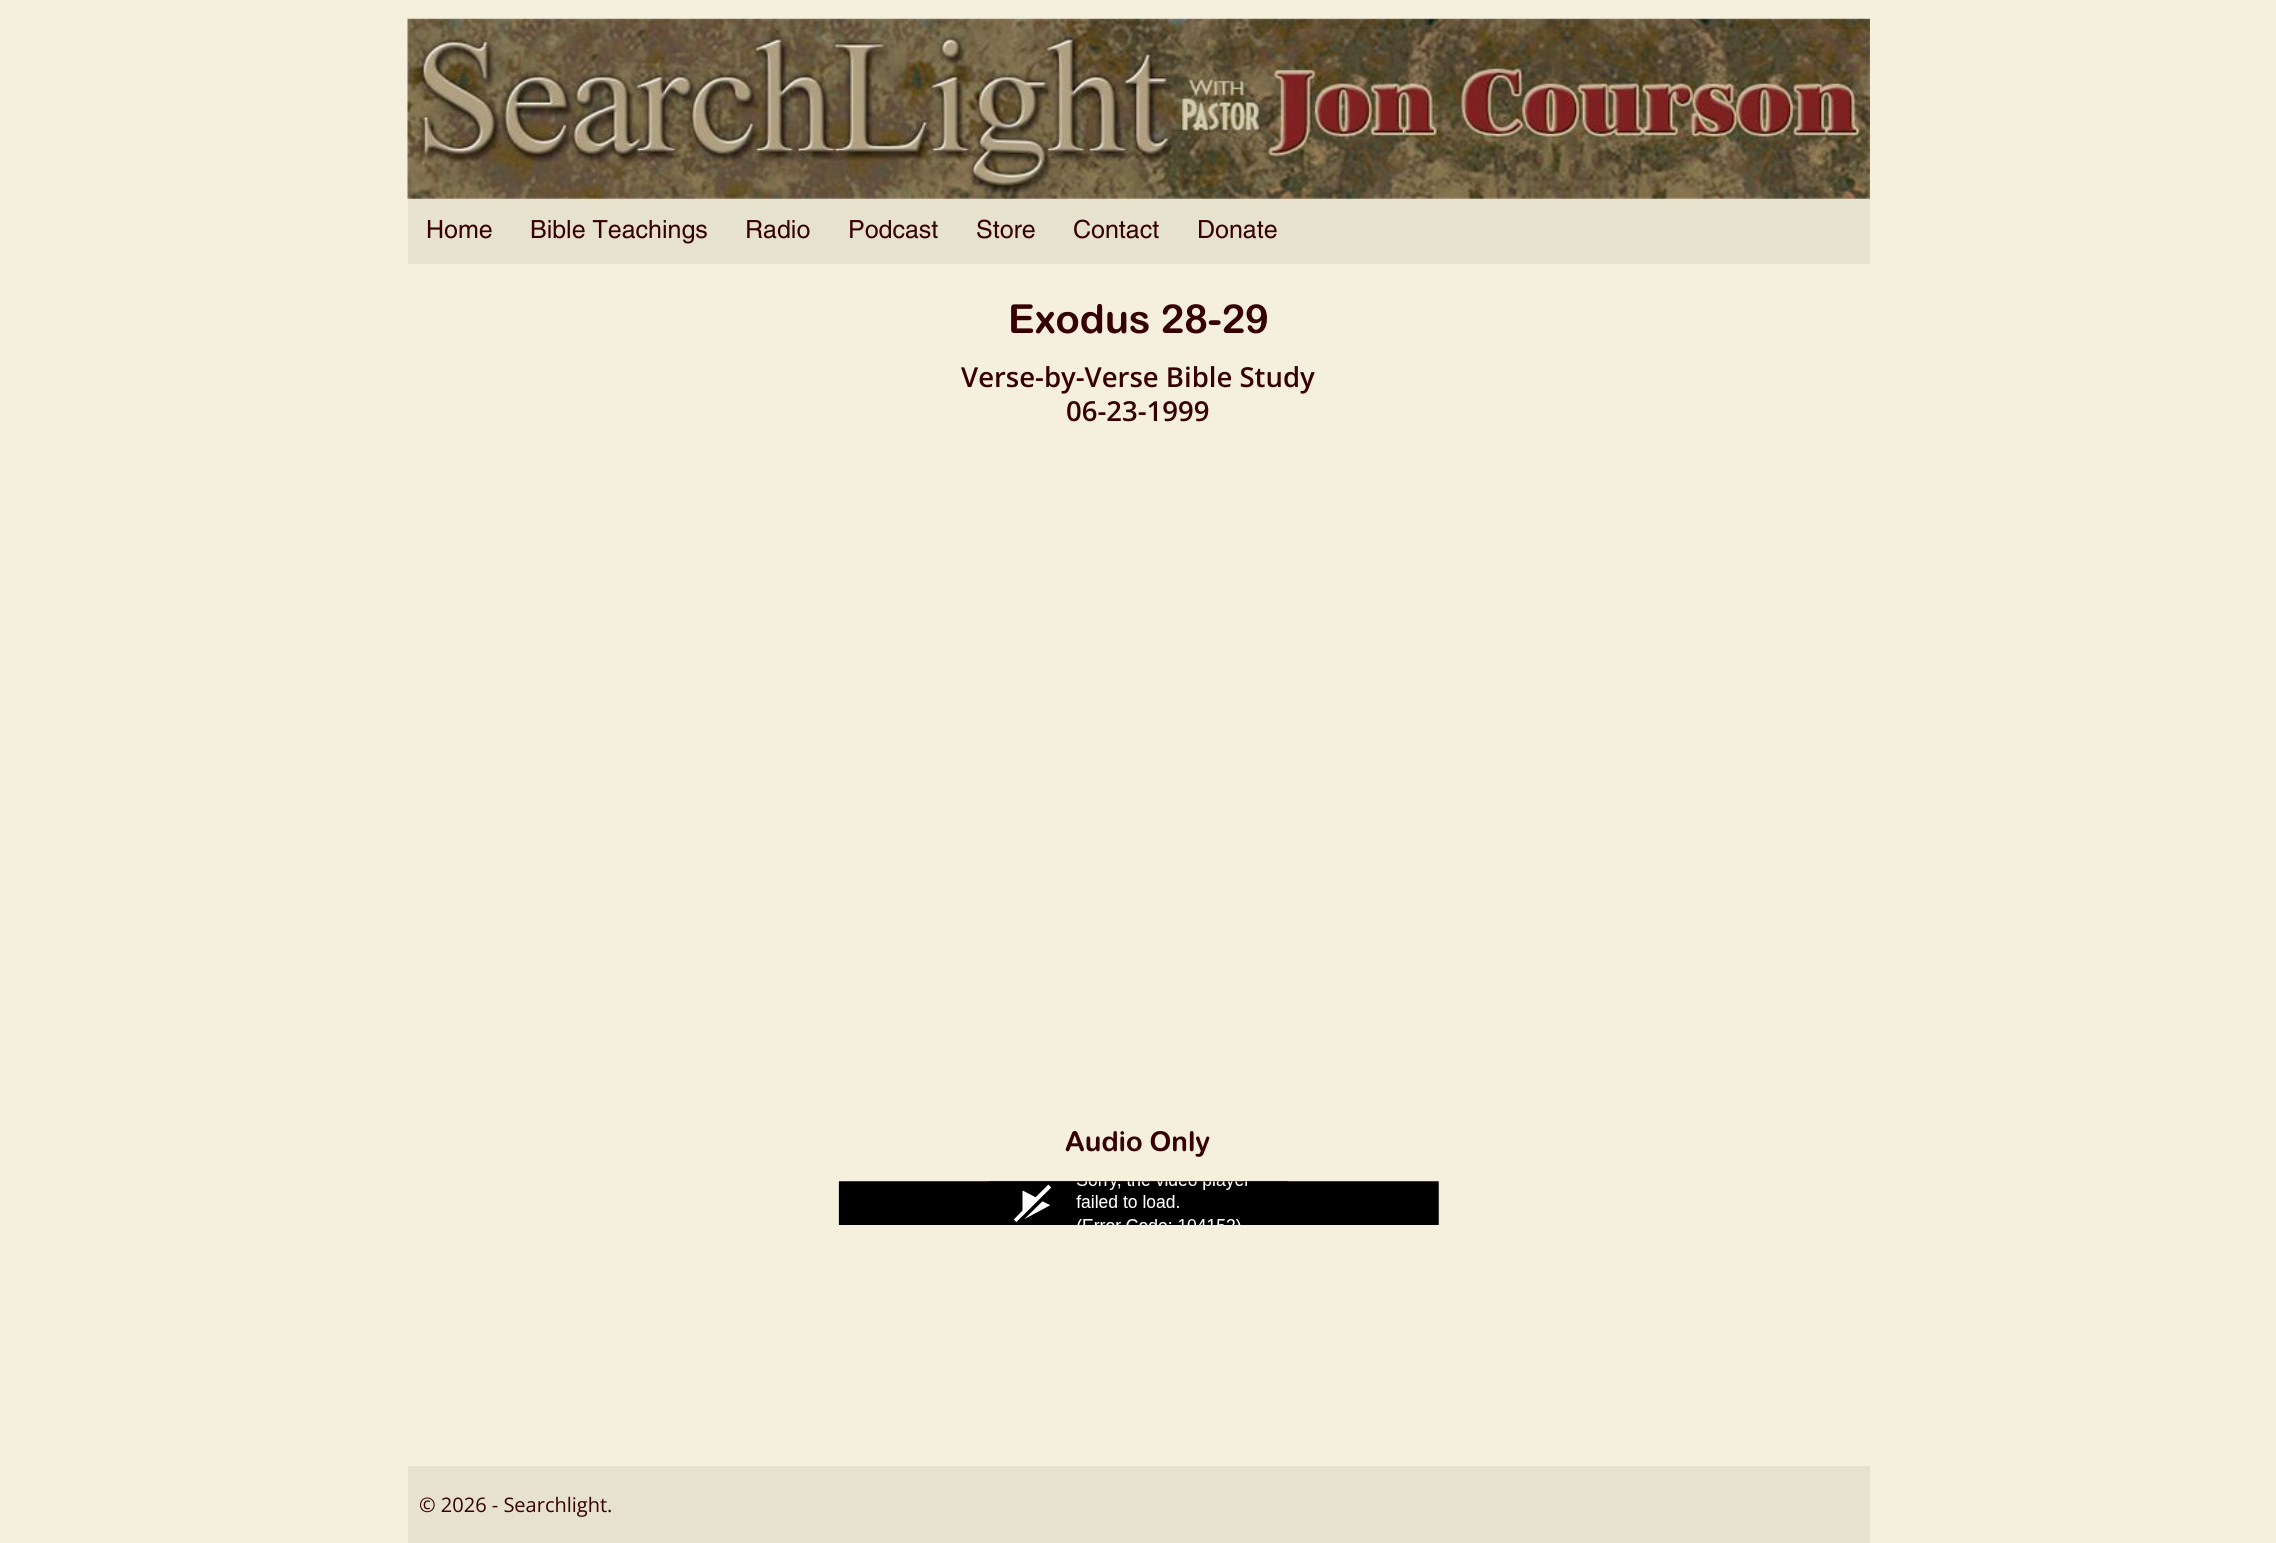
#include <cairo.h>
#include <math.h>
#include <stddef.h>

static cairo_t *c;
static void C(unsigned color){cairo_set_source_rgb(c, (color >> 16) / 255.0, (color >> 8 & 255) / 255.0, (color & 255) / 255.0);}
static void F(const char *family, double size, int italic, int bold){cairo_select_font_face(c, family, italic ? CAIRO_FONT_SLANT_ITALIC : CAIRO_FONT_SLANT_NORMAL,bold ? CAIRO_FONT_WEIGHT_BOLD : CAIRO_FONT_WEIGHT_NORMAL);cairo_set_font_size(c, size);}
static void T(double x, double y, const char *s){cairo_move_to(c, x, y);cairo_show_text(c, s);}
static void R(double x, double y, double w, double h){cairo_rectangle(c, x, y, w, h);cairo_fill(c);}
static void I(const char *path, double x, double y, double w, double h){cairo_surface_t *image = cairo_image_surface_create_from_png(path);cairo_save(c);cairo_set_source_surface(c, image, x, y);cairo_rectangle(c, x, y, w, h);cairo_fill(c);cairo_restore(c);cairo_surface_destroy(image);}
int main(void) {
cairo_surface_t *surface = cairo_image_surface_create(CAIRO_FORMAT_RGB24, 2276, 1543);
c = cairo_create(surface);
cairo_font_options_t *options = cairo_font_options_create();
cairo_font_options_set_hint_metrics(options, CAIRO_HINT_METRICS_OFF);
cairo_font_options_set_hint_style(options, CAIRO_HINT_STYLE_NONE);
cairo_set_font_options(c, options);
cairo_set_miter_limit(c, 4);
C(0xf5f0dd);
cairo_paint(c);
I("1.png",407,18,1463,181);
C(0xe7e2cd);
R(408,199,1462,65);
F("Helvetica",25,0,0);
C(0x370000);
T(426,238,"Home");
T(530,238,"Bible Teachings");
T(745,238,"Radio");
T(848,238,"Podcast");
T(976,238,"Store");
T(1073,238,"Contact");
T(1197,238,"Donate");
F("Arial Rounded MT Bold",40,0,1);
T(1008,333,"Exodus 28-29");
F("Open Sans SemiBold",27.5,0,0);
T(961,387,"Verse-by-Verse Bible Study");
T(1066,421,"06-23-1999");
F("Arial Rounded MT Bold",27.5,0,1);
T(1065,1151,"Audio Only");
I("2.png",838,1181,601,44);
C(0xe7e2cd);
R(408,1466,1462,77);
F("Open Sans",20,0,0);
C(0x370000);
T(419,1512,"© 2026 - Searchlight.");
cairo_surface_write_to_png(surface, "o.png");
cairo_font_options_destroy(options);
cairo_destroy(c);
cairo_surface_destroy(surface);
return 0;
}
